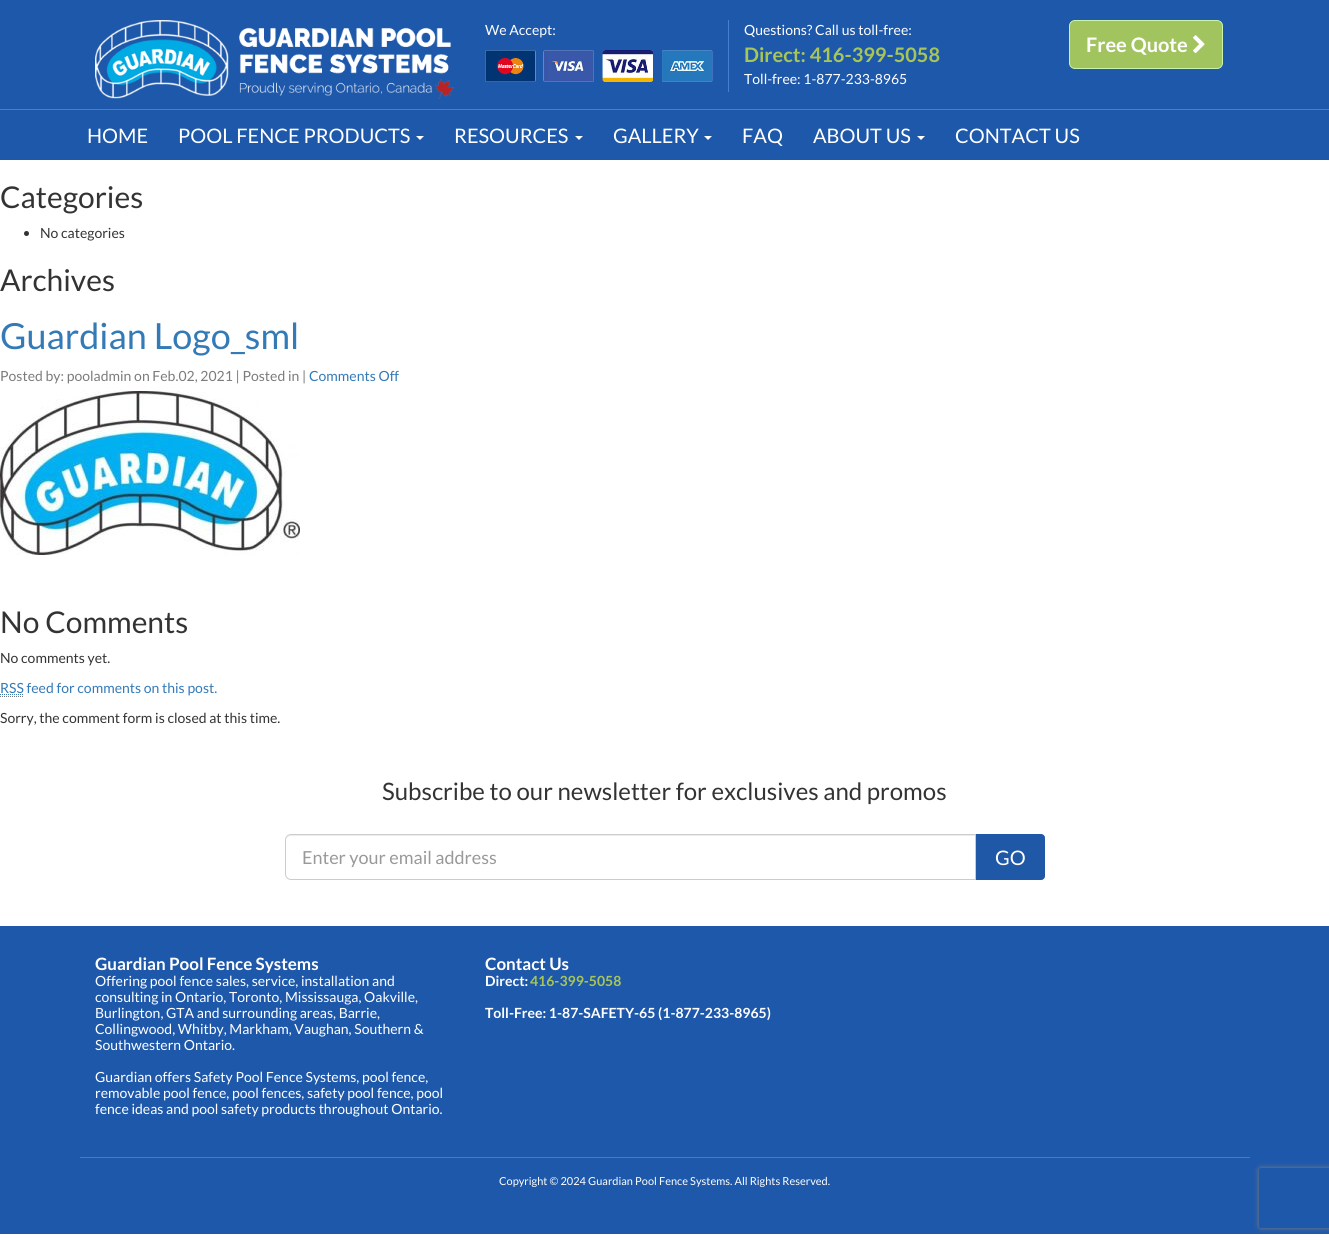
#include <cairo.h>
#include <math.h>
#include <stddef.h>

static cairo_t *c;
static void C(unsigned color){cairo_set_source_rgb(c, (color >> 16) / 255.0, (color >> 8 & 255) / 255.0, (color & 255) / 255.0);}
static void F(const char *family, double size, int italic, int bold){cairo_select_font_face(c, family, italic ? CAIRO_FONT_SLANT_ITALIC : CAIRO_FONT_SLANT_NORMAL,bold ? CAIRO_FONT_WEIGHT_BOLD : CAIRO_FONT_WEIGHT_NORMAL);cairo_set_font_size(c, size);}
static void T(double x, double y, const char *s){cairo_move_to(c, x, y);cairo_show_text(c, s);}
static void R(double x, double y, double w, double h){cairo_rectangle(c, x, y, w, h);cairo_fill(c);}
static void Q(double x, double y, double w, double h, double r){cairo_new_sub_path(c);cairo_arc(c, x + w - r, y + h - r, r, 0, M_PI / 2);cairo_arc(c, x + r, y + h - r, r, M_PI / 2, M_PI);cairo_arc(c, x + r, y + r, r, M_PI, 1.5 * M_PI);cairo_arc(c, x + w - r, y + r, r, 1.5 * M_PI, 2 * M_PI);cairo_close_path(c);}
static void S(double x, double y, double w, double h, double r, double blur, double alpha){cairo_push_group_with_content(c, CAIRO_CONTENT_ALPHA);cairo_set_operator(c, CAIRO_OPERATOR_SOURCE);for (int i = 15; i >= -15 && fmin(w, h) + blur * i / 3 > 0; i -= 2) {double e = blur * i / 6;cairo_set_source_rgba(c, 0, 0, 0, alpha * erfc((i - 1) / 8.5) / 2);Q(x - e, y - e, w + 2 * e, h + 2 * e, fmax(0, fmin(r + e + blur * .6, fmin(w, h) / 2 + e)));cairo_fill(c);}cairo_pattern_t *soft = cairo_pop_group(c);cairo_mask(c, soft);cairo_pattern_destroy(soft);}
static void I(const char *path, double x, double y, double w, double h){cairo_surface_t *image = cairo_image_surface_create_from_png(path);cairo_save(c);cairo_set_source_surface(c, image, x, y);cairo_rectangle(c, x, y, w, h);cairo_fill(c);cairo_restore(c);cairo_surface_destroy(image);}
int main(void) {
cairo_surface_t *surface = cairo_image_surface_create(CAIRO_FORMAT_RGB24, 1329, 1242);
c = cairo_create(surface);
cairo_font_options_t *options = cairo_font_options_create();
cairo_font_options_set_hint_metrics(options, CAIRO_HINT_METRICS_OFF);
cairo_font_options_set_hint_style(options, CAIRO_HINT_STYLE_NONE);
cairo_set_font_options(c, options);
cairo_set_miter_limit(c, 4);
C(0xffffff);
cairo_paint(c);
C(0x1e58aa);
R(0,0,1329,160);
I("1.png",95,20,359,79);
C(0x457fd1);
R(728,20,1,72);
F("Lato",14,0,0);
C(0xffffff);
T(485,35,"We Accept:");
I("2.png",485,50,228,32);
T(744,35,"Questions? Call us toll-free:");
F("Lato",20,0,1);
C(0xa8c656);
T(744,62,"Direct: 416-399-5058");
F("Lato",14,0,0);
C(0xffffff);
T(744,84,"Toll-free: 1-877-233-8965");
C(0xa1c45e);
Q(1069.5,20.5,153,48,5.5);
cairo_fill_preserve(c);
C(0xcaf4ac);
cairo_set_line_width(c,1);
cairo_stroke(c);
F("Lato",20,0,1);
C(0xffffff);
T(1086,52,"Free Quote");
I("3.png",1193,35,12,19);
C(0x447ed0);
R(0,109,1329,1);
F("Lato",20,0,0);
C(0xffffff);
T(87,143,"HOME");
T(178,143,"POOL FENCE PRODUCTS");
cairo_new_path(c);
cairo_move_to(c,416,136);
cairo_line_to(c,424,136);
cairo_line_to(c,420,140);
cairo_close_path(c);
cairo_fill(c);
T(454,143,"RESOURCES");
cairo_new_path(c);
cairo_move_to(c,575,136);
cairo_line_to(c,583,136);
cairo_line_to(c,579,140);
cairo_close_path(c);
cairo_fill(c);
T(613,143,"GALLERY");
cairo_new_path(c);
cairo_move_to(c,704,136);
cairo_line_to(c,712,136);
cairo_line_to(c,708,140);
cairo_close_path(c);
cairo_fill(c);
T(742,143,"FAQ");
T(813,143,"ABOUT US");
cairo_new_path(c);
cairo_move_to(c,917,136);
cairo_line_to(c,925,136);
cairo_line_to(c,921,140);
cairo_close_path(c);
cairo_fill(c);
T(955,143,"CONTACT US");
F("Lato",30,0,0);
C(0x333333);
T(0,208,"Categories");
cairo_new_path(c);
cairo_arc(c,26.5,233.5,2.5,0,2 * M_PI);
cairo_fill(c);
F("Lato",14,0,0);
T(40,238,"No categories");
F("Lato",30,0,0);
T(0,291,"Archives");
F("Lato",36,0,0);
C(0x337ab7);
T(0,349,"Guardian Logo_sml");
F("Lato",14,0,0);
C(0x7c7b7b);
T(0,381,"Posted by: pooladmin on Feb.02, 2021 | Posted in |");
C(0x337ab7);
T(309,381,"Comments Off");
I("4.png",0,391,300,164);
F("Lato",30,0,0);
C(0x333333);
T(0,633,"No Comments");
F("Lato",14,0,0);
T(0,663,"No comments yet.");
cairo_new_path(c);
cairo_move_to(c,0,694.5);
cairo_line_to(c,24,694.5);
C(0x337ab7);
cairo_set_dash(c,(double[]){1,1},2,0);
cairo_stroke(c);
T(0,693,"RSS feed for comments on this post.");
cairo_new_path(c);
cairo_move_to(c,0,696.5);
cairo_line_to(c,24,696.5);
C(0x777777);
cairo_stroke(c);
C(0x333333);
T(0,723,"Sorry, the comment form is closed at this time.");
F("Lato",24,0,0);
T(382,800,"Subscribe to our newsletter for exclusives and promos");
C(0xececec);
cairo_new_path(c);
cairo_move_to(c,291,836);
cairo_line_to(c,975,836);
cairo_line_to(c,975,835);
cairo_line_to(c,291,835);
cairo_curve_to(c,288,835,286,838,286,841);
cairo_curve_to(c,286,838,288,836,291,836);
cairo_close_path(c);
cairo_fill(c);
cairo_new_path(c);
cairo_move_to(c,291,834.5);
cairo_line_to(c,975.5,834.5);
cairo_line_to(c,975.5,879.5);
cairo_line_to(c,291,879.5);
cairo_curve_to(c,288,879.5,285.5,877,285.5,874);
cairo_line_to(c,285.5,840);
cairo_curve_to(c,285.5,837,288,834.5,291,834.5);
cairo_close_path(c);
C(0xcccccc);
cairo_set_dash(c,NULL,0,0);
cairo_stroke(c);
F("Lato",18,0,0);
C(0x999999);
T(302,864,"Enter your email address");
C(0x1f58a7);
cairo_new_path(c);
cairo_move_to(c,976.5,834.5);
cairo_line_to(c,1041,834.5);
cairo_curve_to(c,1043,834.5,1044.5,836,1044.5,838);
cairo_line_to(c,1044.5,876);
cairo_curve_to(c,1044.5,878,1043,879.5,1041,879.5);
cairo_line_to(c,976.5,879.5);
cairo_close_path(c);
cairo_fill_preserve(c);
cairo_stroke(c);
F("Lato",20,0,0);
C(0xffffff);
T(995,865,"GO");
C(0x1e58aa);
R(0,926,1329,308);
F("Lato",17,0,1);
C(0xffffff);
T(95,970,"Guardian Pool Fence Systems");
F("Lato",14,0,0);
T(95,986,"Offering pool fence sales, service, installation and");
T(95,1002,"consulting in Ontario, Toronto, Mississauga, Oakville,");
T(95,1018,"Burlington, GTA and surrounding areas, Barrie,");
T(95,1034,"Collingwood, Whitby, Markham, Vaughan, Southern &");
T(95,1050,"Southwestern Ontario.");
T(95,1082,"Guardian offers Safety Pool Fence Systems, pool fence,");
T(95,1098,"removable pool fence, pool fences, safety pool fence, pool");
T(95,1114,"fence ideas and pool safety products throughout Ontario.");
F("Lato",17,0,1);
T(485,970,"Contact Us");
F("Lato",14,0,1);
T(485,986,"Direct:");
C(0xa8c656);
T(530,986,"416-399-5058");
C(0xffffff);
T(485,1018,"Toll-Free: 1-87-SAFETY-65 (1-877-233-8965)");
C(0x2a87cd);
R(80,1157,1170,1);
F("Lato",11,0,0);
C(0xffffff);
T(499,1185,"Copyright © 2024 Guardian Pool Fence Systems. All Rights Reserved.");
cairo_save(c);
cairo_set_fill_rule(c,CAIRO_FILL_RULE_EVEN_ODD);
cairo_new_path(c);
cairo_move_to(c,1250,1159);
cairo_line_to(c,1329,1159);
cairo_line_to(c,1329,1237);
cairo_line_to(c,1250,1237);
cairo_close_path(c);
cairo_move_to(c,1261,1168);
cairo_line_to(c,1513,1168);
cairo_curve_to(c,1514,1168,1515,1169,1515,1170);
cairo_line_to(c,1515,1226);
cairo_curve_to(c,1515,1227,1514,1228,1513,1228);
cairo_line_to(c,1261,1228);
cairo_curve_to(c,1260,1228,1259,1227,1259,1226);
cairo_line_to(c,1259,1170);
cairo_curve_to(c,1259,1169,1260,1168,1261,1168);
cairo_close_path(c);
cairo_clip(c);
C(0x808080);
S(1259,1168,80,60,2,2.5,1);
cairo_restore(c);
cairo_surface_write_to_png(surface, "o.png");
cairo_font_options_destroy(options);
cairo_destroy(c);
cairo_surface_destroy(surface);
return 0;
}
